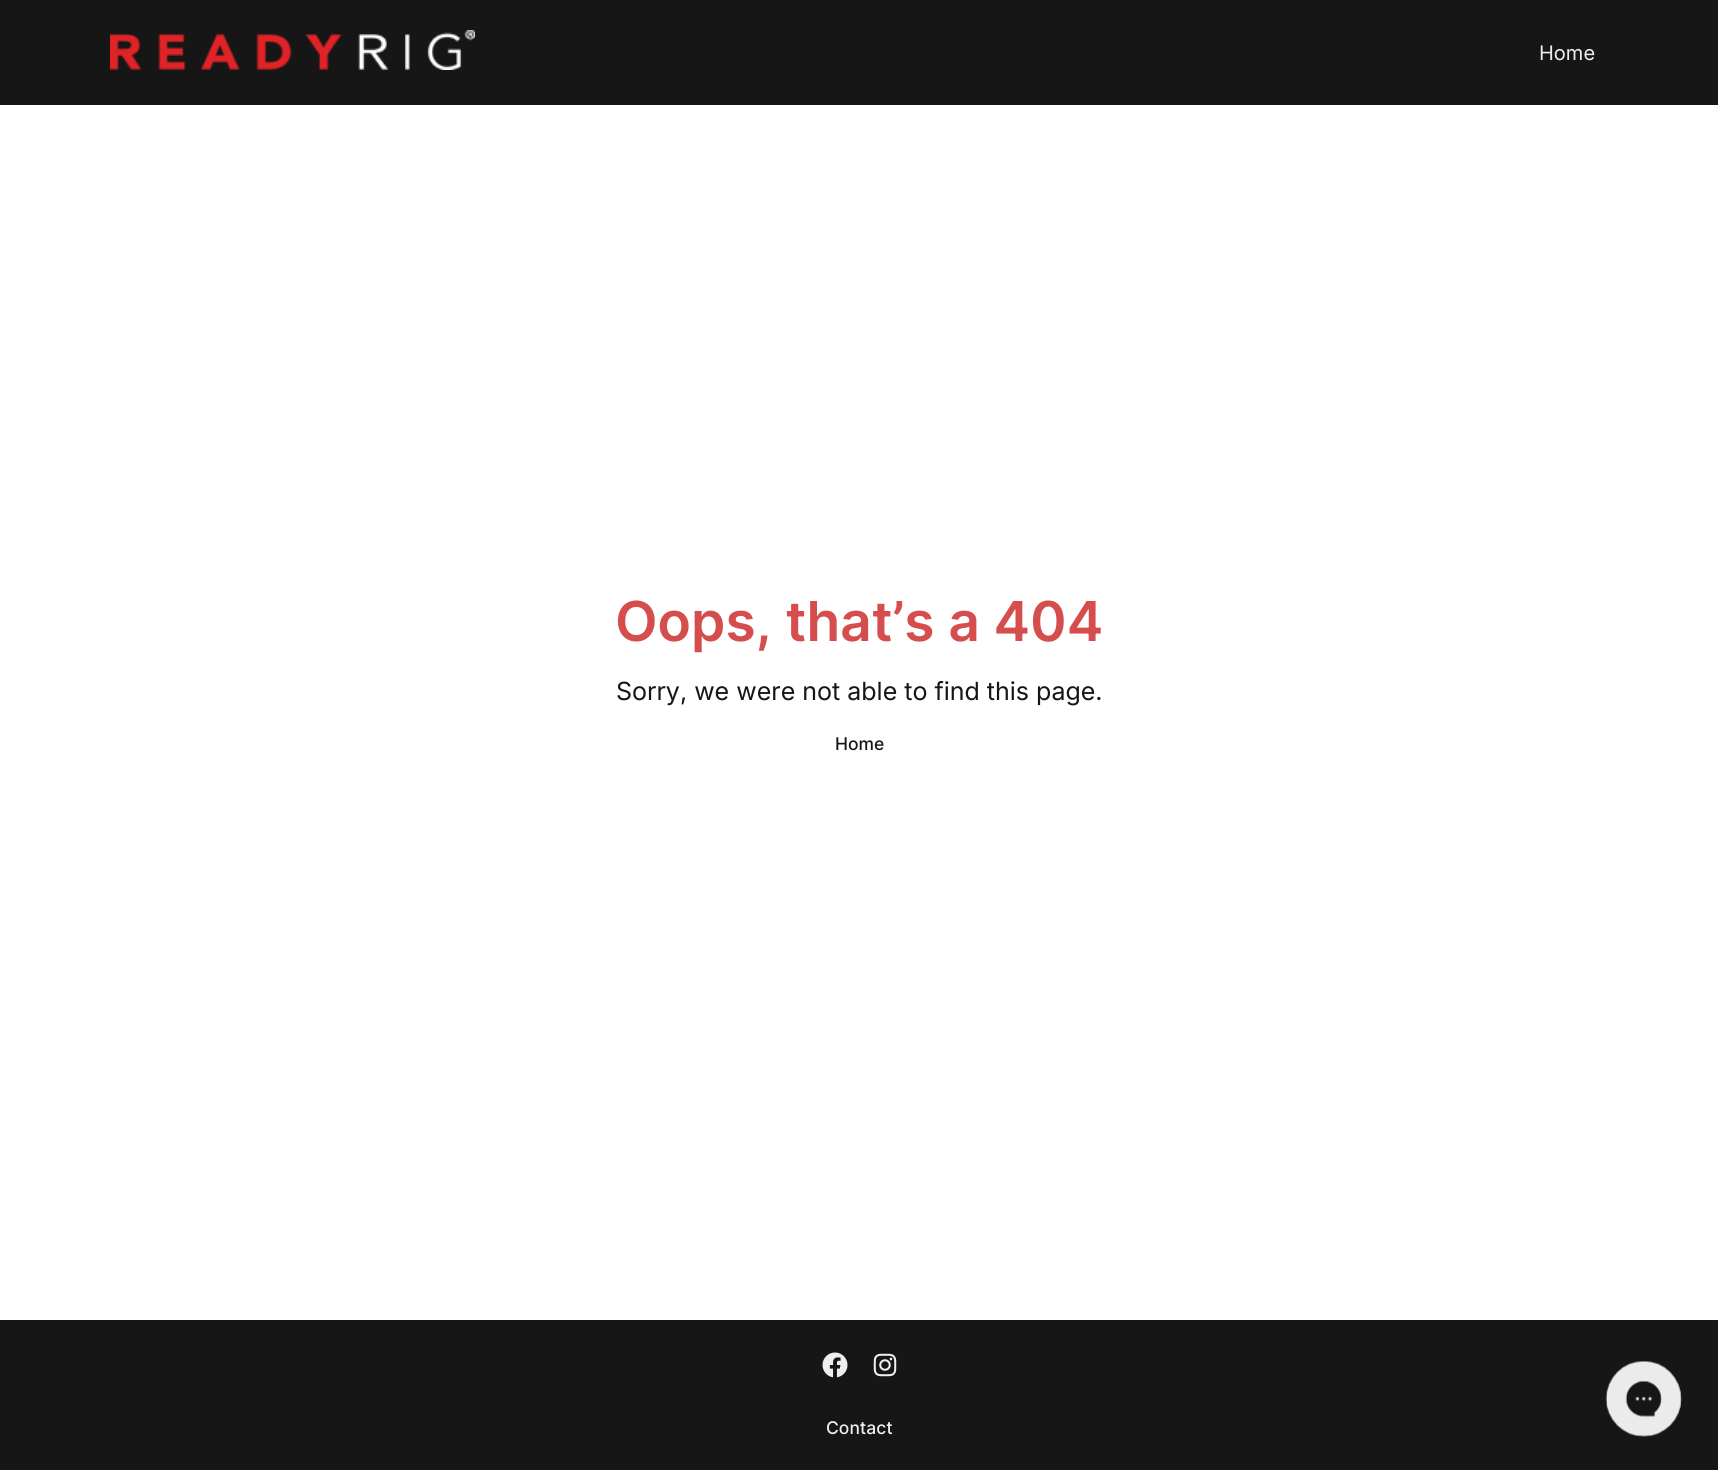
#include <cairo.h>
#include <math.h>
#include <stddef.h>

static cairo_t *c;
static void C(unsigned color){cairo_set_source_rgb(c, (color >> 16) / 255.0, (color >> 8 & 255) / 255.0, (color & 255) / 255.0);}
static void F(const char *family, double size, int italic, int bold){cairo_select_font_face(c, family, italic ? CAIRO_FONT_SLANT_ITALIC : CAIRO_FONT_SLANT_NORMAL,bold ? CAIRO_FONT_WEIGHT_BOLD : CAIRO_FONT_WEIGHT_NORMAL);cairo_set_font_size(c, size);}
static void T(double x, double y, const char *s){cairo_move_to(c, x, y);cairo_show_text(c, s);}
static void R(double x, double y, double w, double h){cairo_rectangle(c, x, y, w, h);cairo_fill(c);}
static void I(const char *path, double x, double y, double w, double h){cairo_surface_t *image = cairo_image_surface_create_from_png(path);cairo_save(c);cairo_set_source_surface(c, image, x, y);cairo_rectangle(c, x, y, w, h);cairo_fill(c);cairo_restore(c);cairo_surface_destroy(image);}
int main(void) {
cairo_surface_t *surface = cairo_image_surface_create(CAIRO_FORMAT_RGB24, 1718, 1470);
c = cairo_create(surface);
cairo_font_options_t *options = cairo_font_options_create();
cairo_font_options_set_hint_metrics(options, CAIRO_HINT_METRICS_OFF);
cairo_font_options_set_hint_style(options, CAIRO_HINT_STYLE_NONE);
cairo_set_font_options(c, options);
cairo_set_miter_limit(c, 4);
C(0xffffff);
cairo_paint(c);
C(0x161616);
R(0,0,1718,105);
I("1.png",110,30,365,40);
F("Inter",20,0,0);
C(0xeeeeee);
T(1539,60,"Home");
F("Inter SemiBold",55,0,0);
C(0xd54d4d);
T(615,641,"Oops, that’s a 404");
F("Inter",25,0,0);
C(0x161616);
T(616,700,"Sorry, we were not able to find this page.");
F("Inter Medium",17.5,0,0);
T(835,750,"Home");
R(0,1320,1718,150);
I("2.png",822,1352,26,26);
I("3.png",873,1353,24,24);
C(0xeeeeee);
T(826,1434,"Contact");
I("4.png",1605,1360,77,77);
cairo_surface_write_to_png(surface, "o.png");
cairo_font_options_destroy(options);
cairo_destroy(c);
cairo_surface_destroy(surface);
return 0;
}
